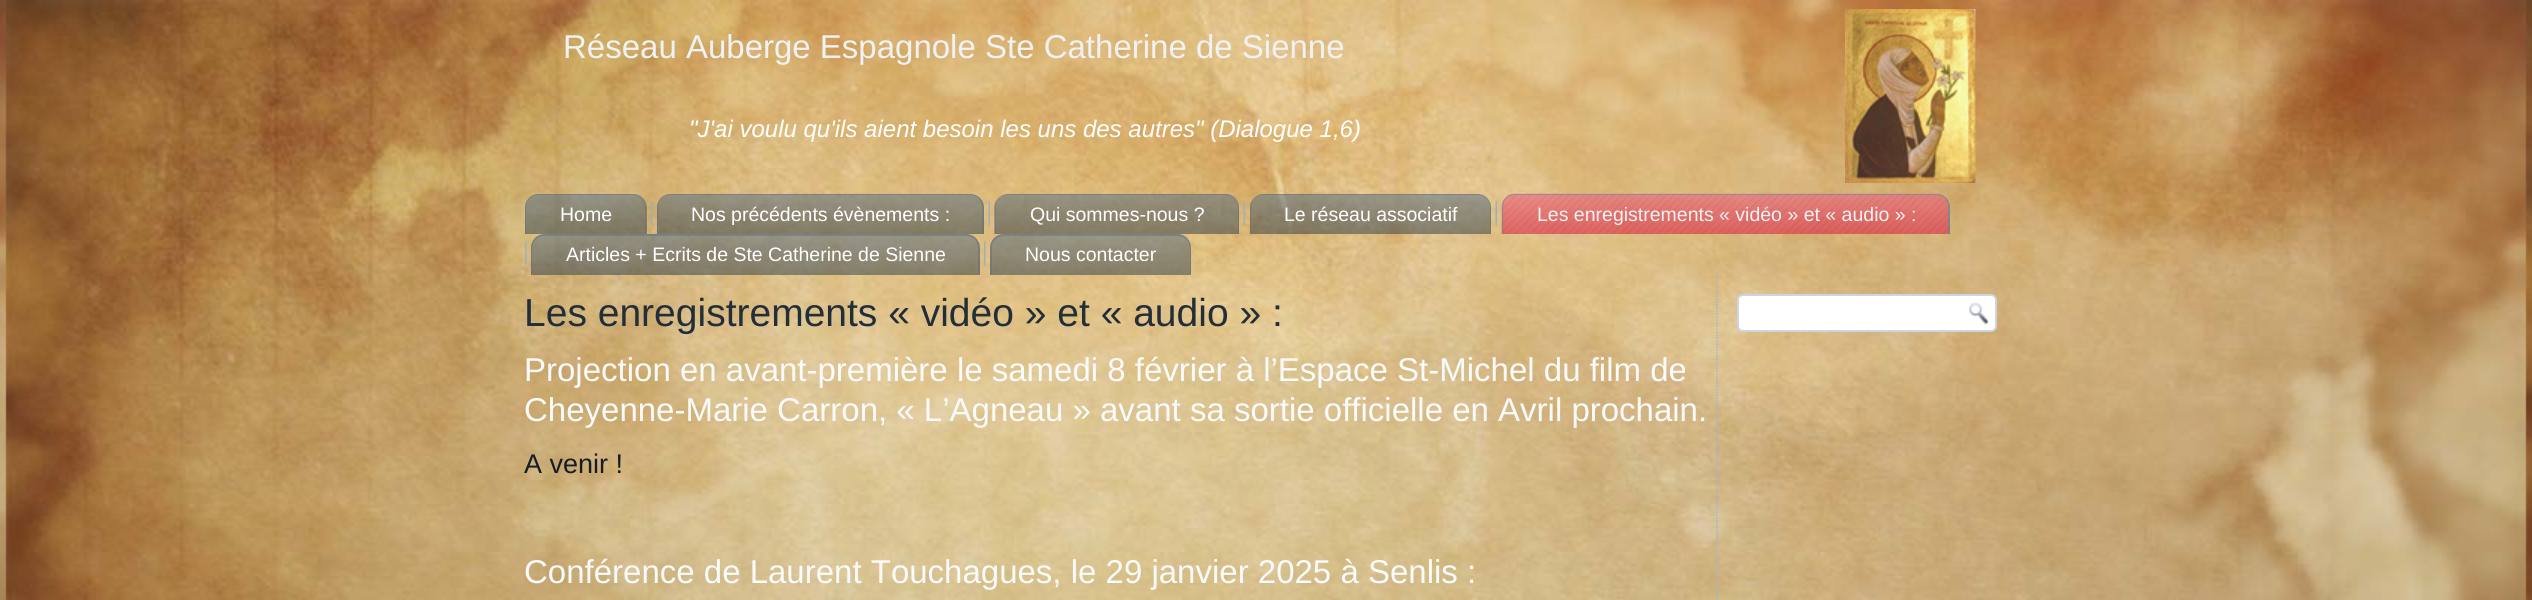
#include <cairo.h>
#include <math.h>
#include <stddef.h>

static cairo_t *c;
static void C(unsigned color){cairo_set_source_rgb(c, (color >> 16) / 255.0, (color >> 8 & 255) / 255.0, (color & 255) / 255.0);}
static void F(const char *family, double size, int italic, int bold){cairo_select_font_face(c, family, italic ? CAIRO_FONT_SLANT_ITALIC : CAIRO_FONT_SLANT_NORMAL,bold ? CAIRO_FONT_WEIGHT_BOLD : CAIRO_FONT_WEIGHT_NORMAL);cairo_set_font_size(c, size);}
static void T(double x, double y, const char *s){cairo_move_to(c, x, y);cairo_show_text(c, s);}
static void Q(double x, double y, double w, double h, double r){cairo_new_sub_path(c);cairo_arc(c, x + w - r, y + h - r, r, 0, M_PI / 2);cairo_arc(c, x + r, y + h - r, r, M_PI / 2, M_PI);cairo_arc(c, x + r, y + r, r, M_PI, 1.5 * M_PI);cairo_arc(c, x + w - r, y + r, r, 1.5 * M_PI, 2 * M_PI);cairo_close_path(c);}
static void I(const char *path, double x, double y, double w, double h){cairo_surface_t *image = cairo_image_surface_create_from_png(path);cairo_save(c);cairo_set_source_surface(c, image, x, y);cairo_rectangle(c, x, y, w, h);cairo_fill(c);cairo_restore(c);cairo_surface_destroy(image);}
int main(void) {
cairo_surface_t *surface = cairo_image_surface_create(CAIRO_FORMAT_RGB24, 2532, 600);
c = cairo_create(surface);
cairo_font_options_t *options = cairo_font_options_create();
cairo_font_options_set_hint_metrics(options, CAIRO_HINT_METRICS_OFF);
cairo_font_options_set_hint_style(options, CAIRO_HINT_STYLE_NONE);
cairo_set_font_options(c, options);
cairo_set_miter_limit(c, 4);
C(0xffffff);
cairo_paint(c);
I("1.png",0,0,2532,600);
I("2.png",1845,9,131,174);
F("Liberation Sans",33,0,0);
C(0xeff2f5);
T(563,58,"Réseau Auberge Espagnole Ste Catherine de Sienne");
F("Liberation Sans",24,1,0);
C(0xffffff);
T(689,137,"\"J'ai voulu qu'ils aient besoin les uns des autres\" (Dialogue 1,6)");
cairo_set_source_rgba(c,0.373,0.439,0.506,0.5);
cairo_set_fill_rule(c,CAIRO_FILL_RULE_EVEN_ODD);
cairo_new_path(c);
cairo_move_to(c,538,194);
cairo_line_to(c,633,194);
cairo_curve_to(c,640,194,646,200,646,207);
cairo_line_to(c,646,234);
cairo_line_to(c,525,234);
cairo_line_to(c,525,207);
cairo_curve_to(c,525,200,531,194,538,194);
cairo_close_path(c);
cairo_move_to(c,538,195);
cairo_line_to(c,633,195);
cairo_curve_to(c,640,195,645,200,645,207);
cairo_line_to(c,645,234);
cairo_line_to(c,526,234);
cairo_line_to(c,526,207);
cairo_curve_to(c,526,200,532,195,538,195);
cairo_close_path(c);
cairo_fill(c);
F("Liberation Sans",19.5,0,0);
C(0xffffff);
T(560,221,"Home");
I("3.png",651,200,2,26);
cairo_set_source_rgba(c,0.373,0.439,0.506,0.5);
cairo_new_path(c);
cairo_move_to(c,670,194);
cairo_line_to(c,970,194);
cairo_curve_to(c,978,194,984,200,984,207);
cairo_line_to(c,984,234);
cairo_line_to(c,657,234);
cairo_line_to(c,657,207);
cairo_curve_to(c,657,200,663,194,670,194);
cairo_close_path(c);
cairo_move_to(c,670,195);
cairo_line_to(c,970,195);
cairo_curve_to(c,977,195,982,200,982,207);
cairo_line_to(c,982,234);
cairo_line_to(c,658,234);
cairo_line_to(c,658,207);
cairo_curve_to(c,658,200,664,195,670,195);
cairo_close_path(c);
cairo_fill(c);
C(0xffffff);
T(691,221,"Nos précédents évènements :");
I("4.png",988,200,2,26);
cairo_set_source_rgba(c,0.373,0.439,0.506,0.5);
cairo_new_path(c);
cairo_move_to(c,1008,194);
cairo_line_to(c,1226,194);
cairo_curve_to(c,1233,194,1239,200,1239,207);
cairo_line_to(c,1239,234);
cairo_line_to(c,994,234);
cairo_line_to(c,994,207);
cairo_curve_to(c,994,200,1001,194,1008,194);
cairo_close_path(c);
cairo_move_to(c,1008,195);
cairo_line_to(c,1226,195);
cairo_curve_to(c,1232,195,1238,200,1238,207);
cairo_line_to(c,1238,234);
cairo_line_to(c,996,234);
cairo_line_to(c,996,207);
cairo_curve_to(c,996,200,1001,195,1008,195);
cairo_close_path(c);
cairo_fill(c);
C(0xffffff);
T(1030,221,"Qui sommes-nous ?");
I("5.png",1243,200,2,26);
cairo_set_source_rgba(c,0.373,0.439,0.506,0.5);
cairo_new_path(c);
cairo_move_to(c,1263,194);
cairo_line_to(c,1478,194);
cairo_curve_to(c,1485,194,1491,200,1491,207);
cairo_line_to(c,1491,234);
cairo_line_to(c,1250,234);
cairo_line_to(c,1250,207);
cairo_curve_to(c,1250,200,1256,194,1263,194);
cairo_close_path(c);
cairo_move_to(c,1263,195);
cairo_line_to(c,1478,195);
cairo_curve_to(c,1484,195,1490,200,1490,207);
cairo_line_to(c,1490,234);
cairo_line_to(c,1251,234);
cairo_line_to(c,1251,207);
cairo_curve_to(c,1251,200,1256,195,1263,195);
cairo_close_path(c);
cairo_fill(c);
C(0xffffff);
T(1284,221,"Le réseau associatif");
I("6.png",1495,200,2,26);
I("7.png",1501,193,449,41);
cairo_set_source_rgba(c,0.235,0.592,0.667,0.5);
cairo_new_path(c);
cairo_move_to(c,1515,194);
cairo_line_to(c,1936,194);
cairo_curve_to(c,1944,194,1950,200,1950,207);
cairo_line_to(c,1950,234);
cairo_line_to(c,1502,234);
cairo_line_to(c,1502,207);
cairo_curve_to(c,1502,200,1508,194,1515,194);
cairo_close_path(c);
cairo_move_to(c,1515,195);
cairo_line_to(c,1936,195);
cairo_curve_to(c,1943,195,1948,200,1948,207);
cairo_line_to(c,1948,234);
cairo_line_to(c,1503,234);
cairo_line_to(c,1503,207);
cairo_curve_to(c,1503,200,1508,195,1515,195);
cairo_close_path(c);
cairo_fill(c);
C(0xeff2f5);
T(1537,221,"Les enregistrements « vidéo » et « audio » :");
I("8.png",525,241,2,25);
cairo_set_source_rgba(c,0.373,0.439,0.506,0.5);
cairo_new_path(c);
cairo_move_to(c,544,234);
cairo_line_to(c,966,234);
cairo_curve_to(c,973,234,980,240,980,248);
cairo_line_to(c,980,274);
cairo_line_to(c,531,274);
cairo_line_to(c,531,248);
cairo_curve_to(c,531,240,537,234,544,234);
cairo_close_path(c);
cairo_move_to(c,544,236);
cairo_line_to(c,966,236);
cairo_curve_to(c,973,236,978,241,978,248);
cairo_line_to(c,978,274);
cairo_line_to(c,532,274);
cairo_line_to(c,532,248);
cairo_curve_to(c,532,241,538,236,544,236);
cairo_close_path(c);
cairo_fill(c);
C(0xffffff);
T(566,261,"Articles + Ecrits de Ste Catherine de Sienne");
I("9.png",984,241,2,25);
cairo_set_source_rgba(c,0.373,0.439,0.506,0.5);
cairo_new_path(c);
cairo_move_to(c,1004,234);
cairo_line_to(c,1178,234);
cairo_curve_to(c,1185,234,1191,240,1191,248);
cairo_line_to(c,1191,274);
cairo_line_to(c,990,274);
cairo_line_to(c,990,248);
cairo_curve_to(c,990,240,996,234,1004,234);
cairo_close_path(c);
cairo_move_to(c,1004,236);
cairo_line_to(c,1178,236);
cairo_curve_to(c,1184,236,1190,241,1190,248);
cairo_line_to(c,1190,274);
cairo_line_to(c,992,274);
cairo_line_to(c,992,248);
cairo_curve_to(c,992,241,997,236,1004,236);
cairo_close_path(c);
cairo_fill(c);
C(0xffffff);
T(1025,261,"Nous contacter");
F("Liberation Sans",39,0,0);
C(0x222e39);
T(524,326,"Les enregistrements « vidéo » et « audio » :");
F("Liberation Sans",33,0,0);
C(0xf9fafb);
T(524,381,"Projection en avant-première le samedi 8 février à l’Espace St-Michel du film de");
T(524,421,"Cheyenne-Marie Carron, « L’Agneau » avant sa sortie officielle en Avril prochain.");
F("Liberation Sans",27,0,0);
C(0x151c23);
T(524,473,"A venir !");
F("Liberation Sans",33,0,0);
C(0xf9fafb);
T(524,583,"Conférence de Laurent Touchagues, le 29 janvier 2025 à Senlis :");
cairo_new_path(c);
cairo_move_to(c,1717,274.5);
cairo_line_to(c,1717,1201.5);
C(0xa3b4c8);
cairo_set_line_width(c,1.5);
cairo_set_dash(c,(double[]){1.5,1.5},2,0);
cairo_stroke(c);
C(0xffffff);
Q(1738,295,258,36,5);
cairo_fill_preserve(c);
C(0xccd6e0);
cairo_set_line_width(c,2);
cairo_set_dash(c,NULL,0,0);
cairo_stroke(c);
I("10.png",1968,302,21,23);
cairo_surface_write_to_png(surface, "o.png");
cairo_font_options_destroy(options);
cairo_destroy(c);
cairo_surface_destroy(surface);
return 0;
}
